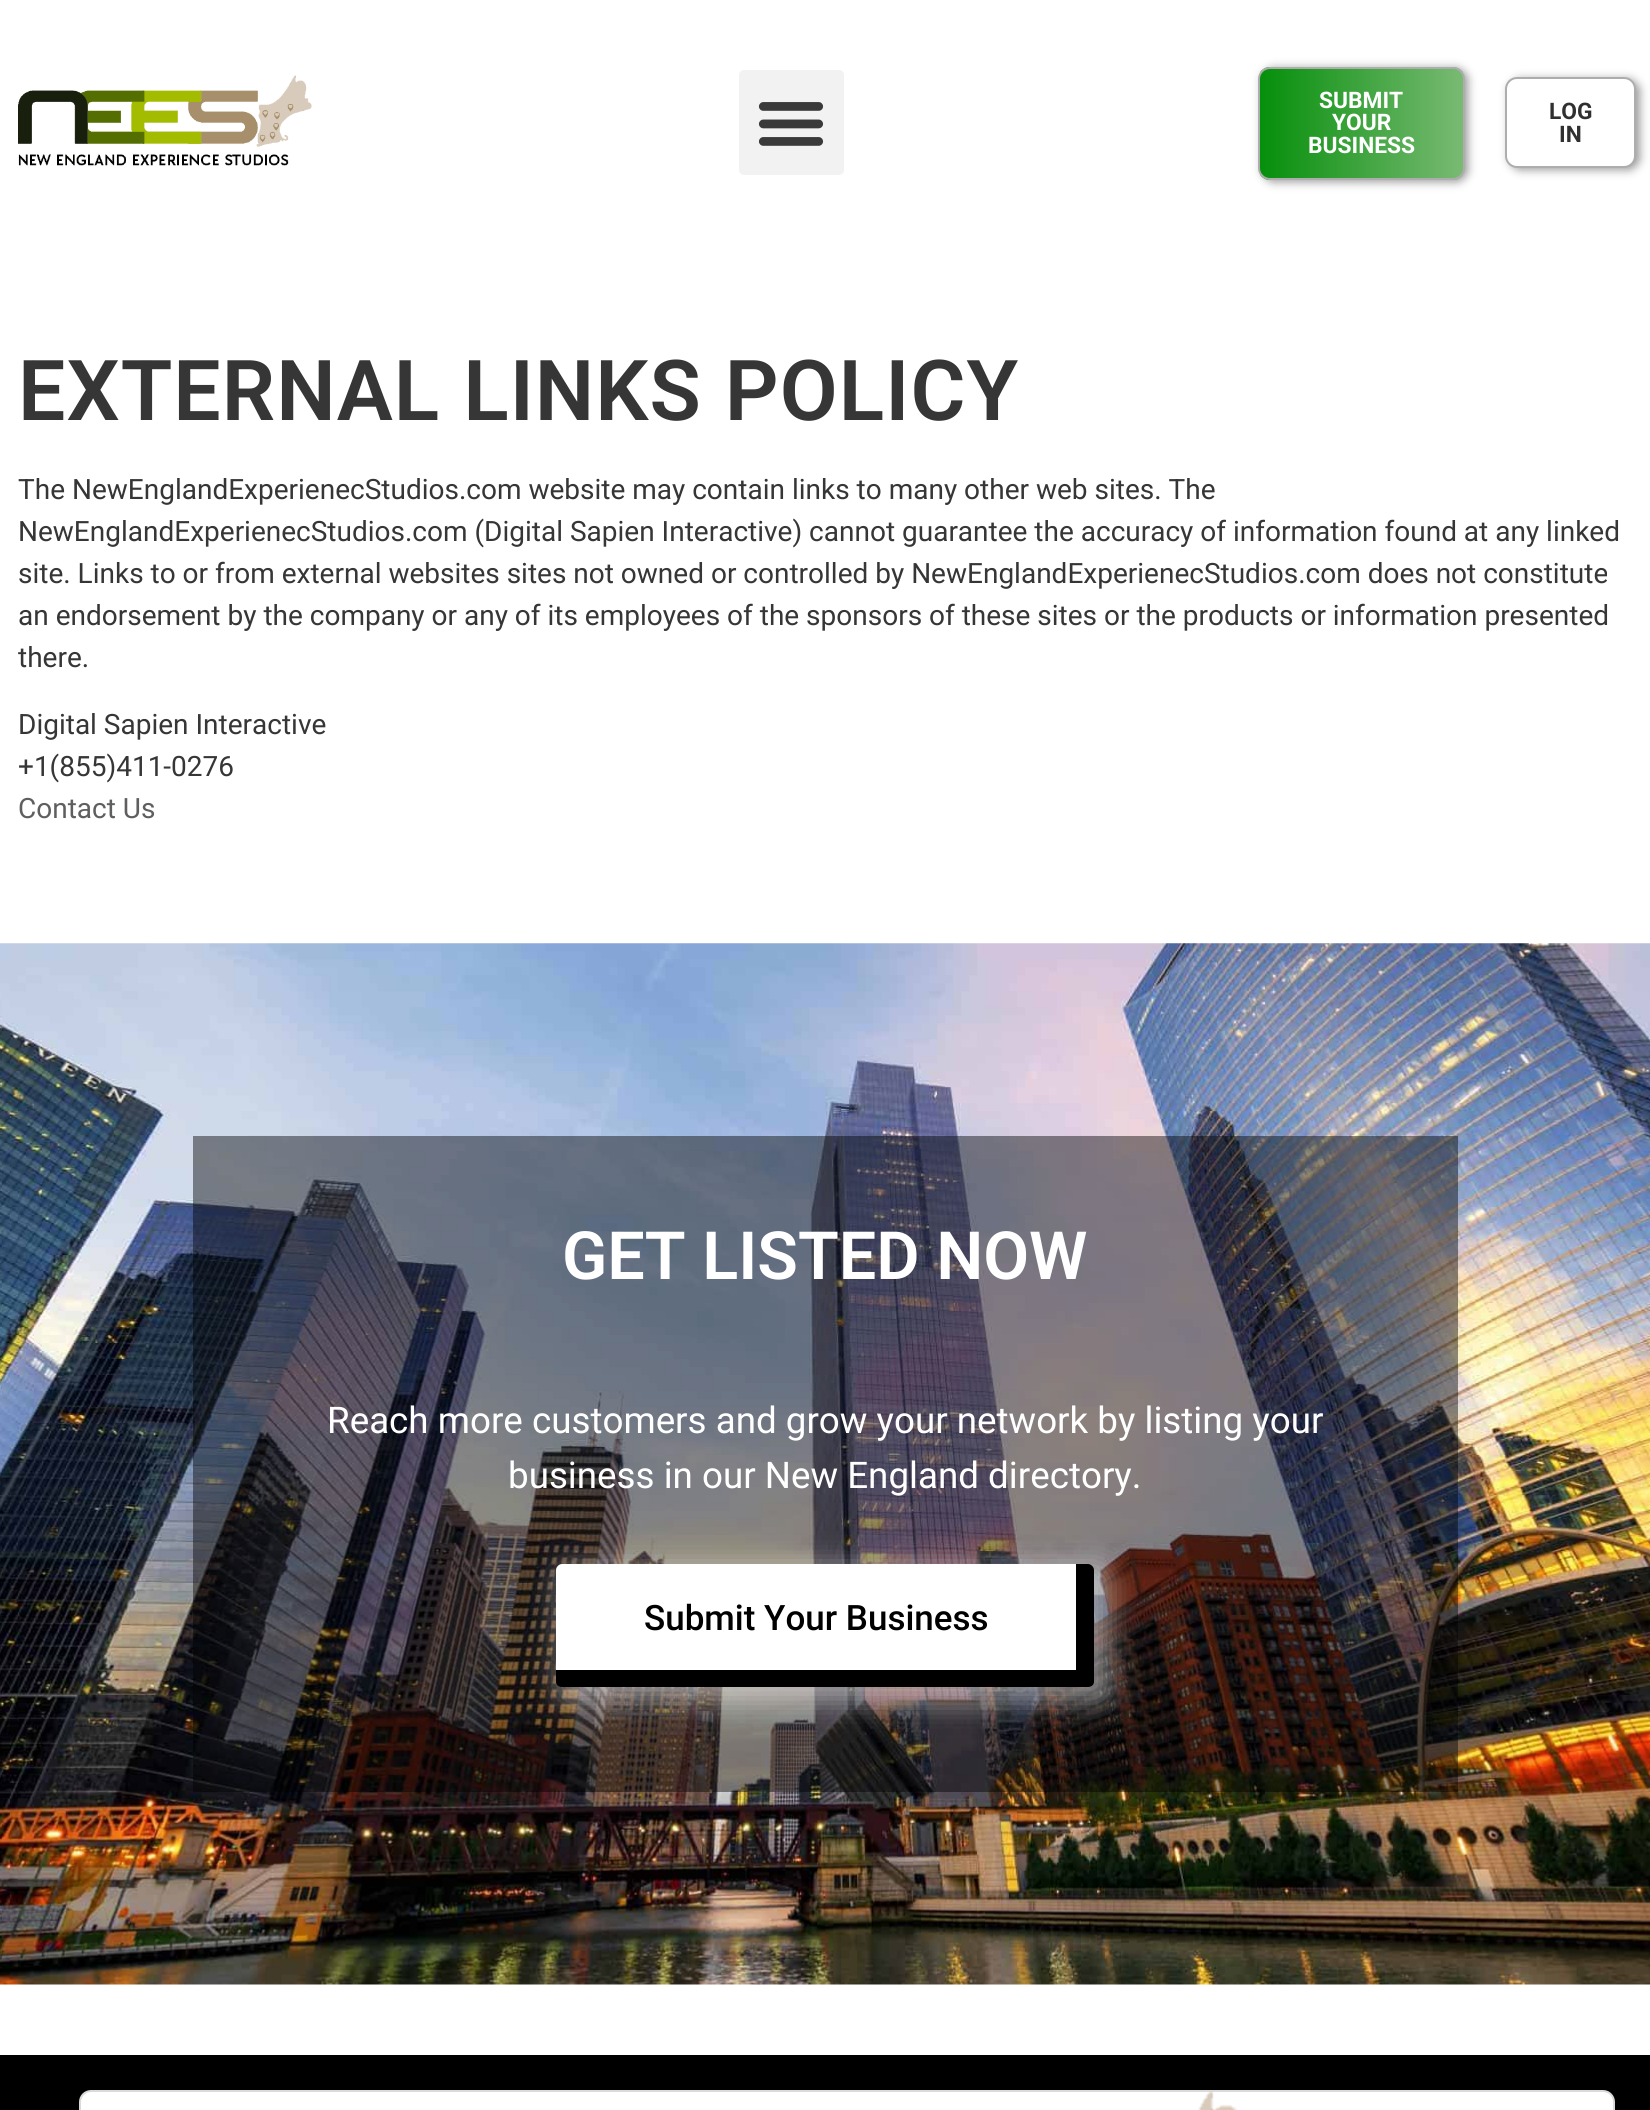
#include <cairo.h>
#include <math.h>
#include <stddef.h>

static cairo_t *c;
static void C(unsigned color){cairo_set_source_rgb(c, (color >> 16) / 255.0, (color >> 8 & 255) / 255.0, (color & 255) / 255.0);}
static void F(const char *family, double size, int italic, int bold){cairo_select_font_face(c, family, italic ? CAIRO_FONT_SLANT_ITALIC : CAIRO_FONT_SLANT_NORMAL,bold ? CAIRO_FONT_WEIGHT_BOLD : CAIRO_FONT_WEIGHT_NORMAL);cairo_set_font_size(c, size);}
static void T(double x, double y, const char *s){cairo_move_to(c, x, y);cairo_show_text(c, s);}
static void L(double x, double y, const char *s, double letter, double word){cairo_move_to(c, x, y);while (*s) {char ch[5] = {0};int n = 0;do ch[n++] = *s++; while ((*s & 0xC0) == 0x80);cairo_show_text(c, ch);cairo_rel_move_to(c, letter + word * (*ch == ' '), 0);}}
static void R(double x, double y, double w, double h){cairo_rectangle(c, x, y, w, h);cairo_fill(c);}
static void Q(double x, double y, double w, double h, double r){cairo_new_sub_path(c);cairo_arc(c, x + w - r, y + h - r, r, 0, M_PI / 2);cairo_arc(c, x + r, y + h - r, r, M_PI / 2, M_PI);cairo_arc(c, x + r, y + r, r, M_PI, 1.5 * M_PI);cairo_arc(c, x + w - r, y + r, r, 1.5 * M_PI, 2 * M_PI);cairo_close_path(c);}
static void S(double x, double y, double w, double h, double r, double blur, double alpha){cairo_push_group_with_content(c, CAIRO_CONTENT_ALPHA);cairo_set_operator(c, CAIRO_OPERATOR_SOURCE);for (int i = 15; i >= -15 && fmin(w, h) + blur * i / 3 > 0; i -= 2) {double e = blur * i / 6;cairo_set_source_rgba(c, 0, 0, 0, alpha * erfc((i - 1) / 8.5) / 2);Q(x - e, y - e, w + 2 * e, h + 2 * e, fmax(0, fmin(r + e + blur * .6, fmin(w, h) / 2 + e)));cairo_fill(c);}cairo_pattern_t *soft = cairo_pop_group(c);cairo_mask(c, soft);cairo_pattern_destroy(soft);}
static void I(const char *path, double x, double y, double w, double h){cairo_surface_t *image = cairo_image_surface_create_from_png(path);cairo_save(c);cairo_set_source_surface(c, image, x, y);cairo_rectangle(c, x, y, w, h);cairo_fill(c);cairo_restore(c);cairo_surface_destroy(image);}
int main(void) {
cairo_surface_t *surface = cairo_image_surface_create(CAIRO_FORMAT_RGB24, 1650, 2110);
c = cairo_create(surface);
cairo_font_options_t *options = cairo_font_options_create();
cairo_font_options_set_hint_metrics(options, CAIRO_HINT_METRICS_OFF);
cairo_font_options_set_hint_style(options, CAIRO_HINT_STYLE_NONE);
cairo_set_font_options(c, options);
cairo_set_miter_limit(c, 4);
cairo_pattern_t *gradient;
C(0xffffff);
cairo_paint(c);
I("1.png",18,75,294,91);
C(0xf2f2f2);
Q(739,70,105,105,5);
cairo_fill(c);
I("2.png",758,102,66,44);
C(0x9a9a9a);
S(1262,68,206,114,12,4.5,.99);
cairo_save(c);
Q(1258,67,207,113,12);
cairo_clip(c);
gradient = cairo_pattern_create_linear(1260,123,1463,123);
cairo_pattern_add_color_stop_rgba(gradient,0,0.02,0.561,0.043,1);
cairo_pattern_add_color_stop_rgba(gradient,1,0.475,0.729,0.451,1);
cairo_set_source(c,gradient);
cairo_pattern_destroy(gradient);
R(1260,67,203,113);
cairo_restore(c);
Q(1259,68,205,111,11);
C(0xadadad);
cairo_stroke(c);
F("Roboto",22.75,0,1);
C(0xffffff);
T(1319,108,"SUBMIT");
T(1332,130,"YOUR");
T(1308,153,"BUSINESS");
C(0x9a9a9a);
S(1509,79,131,91,12,4.5,.99);
C(0xffffff);
Q(1506,78,129,89,11);
cairo_fill_preserve(c);
C(0xadadad);
cairo_stroke(c);
C(0x303030);
T(1549,119,"LOG");
T(1559,142,"IN");
F("Roboto SemiBold",84,0,0);
C(0x363636);
L(18,420,"EXTERNAL LINKS POLICY",1.05,1);
F("Roboto",28,0,0);
T(18,499,"The NewEnglandExperienecStudios.com website may contain links to many other web sites. The");
T(18,541,"NewEnglandExperienecStudios.com (Digital Sapien Interactive) cannot guarantee the accuracy of information found at any linked");
T(18,583,"site. Links to or from external websites sites not owned or controlled by NewEnglandExperienecStudios.com does not constitute");
T(18,625,"an endorsement by the company or any of its employees of the sponsors of these sites or the products or information presented");
T(18,667,"there.");
T(18,734,"Digital Sapien Interactive");
T(18,776,"+1(855)411-0276");
C(0x605e5e);
T(18,818,"Contact Us");
I("3.png",0,943,1650,1042);
cairo_set_source_rgba(c,0,0,0,0.44);
R(193,1136,1265,656);
F("Roboto SemiBold",66.5,0,0);
C(0xffffff);
T(562,1279,"GET LISTED NOW");
F("Roboto",36.75,0,0);
T(327,1433,"Reach more customers and grow your network by listing your");
T(508,1488,"business in our New England directory.");
C(0xffffff);
S(558,1566,552,137,12,14,.5);
C(0xffffff);
cairo_new_path(c);
cairo_move_to(c,562,1564);
cairo_line_to(c,1076,1564);
cairo_line_to(c,1076,1670);
cairo_line_to(c,556,1670);
cairo_line_to(c,556,1570);
cairo_curve_to(c,556,1567,559,1564,562,1564);
cairo_close_path(c);
cairo_fill(c);
C(0x000000);
cairo_set_fill_rule(c,CAIRO_FILL_RULE_EVEN_ODD);
cairo_new_path(c);
cairo_move_to(c,562,1564);
cairo_line_to(c,1088,1564);
cairo_curve_to(c,1091,1564,1094,1567,1094,1570);
cairo_line_to(c,1094,1682);
cairo_curve_to(c,1094,1685,1091,1687,1088,1687);
cairo_line_to(c,562,1687);
cairo_curve_to(c,559,1687,556,1685,556,1682);
cairo_line_to(c,556,1570);
cairo_curve_to(c,556,1567,559,1564,562,1564);
cairo_close_path(c);
cairo_move_to(c,562,1564);
cairo_line_to(c,1076,1564);
cairo_line_to(c,1076,1670);
cairo_line_to(c,556,1670);
cairo_line_to(c,556,1570);
cairo_curve_to(c,556,1567,559,1564,562,1564);
cairo_close_path(c);
cairo_fill(c);
F("Roboto Medium",35,0,0);
T(644,1630,"Submit Your Business");
R(0,2055,1650,55);
C(0xffffff);
Q(80,2091,1534,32,11);
cairo_fill_preserve(c);
C(0xdadada);
cairo_stroke(c);
I("4.png",1198,2091,40,19);
cairo_surface_write_to_png(surface, "o.png");
cairo_font_options_destroy(options);
cairo_destroy(c);
cairo_surface_destroy(surface);
return 0;
}
